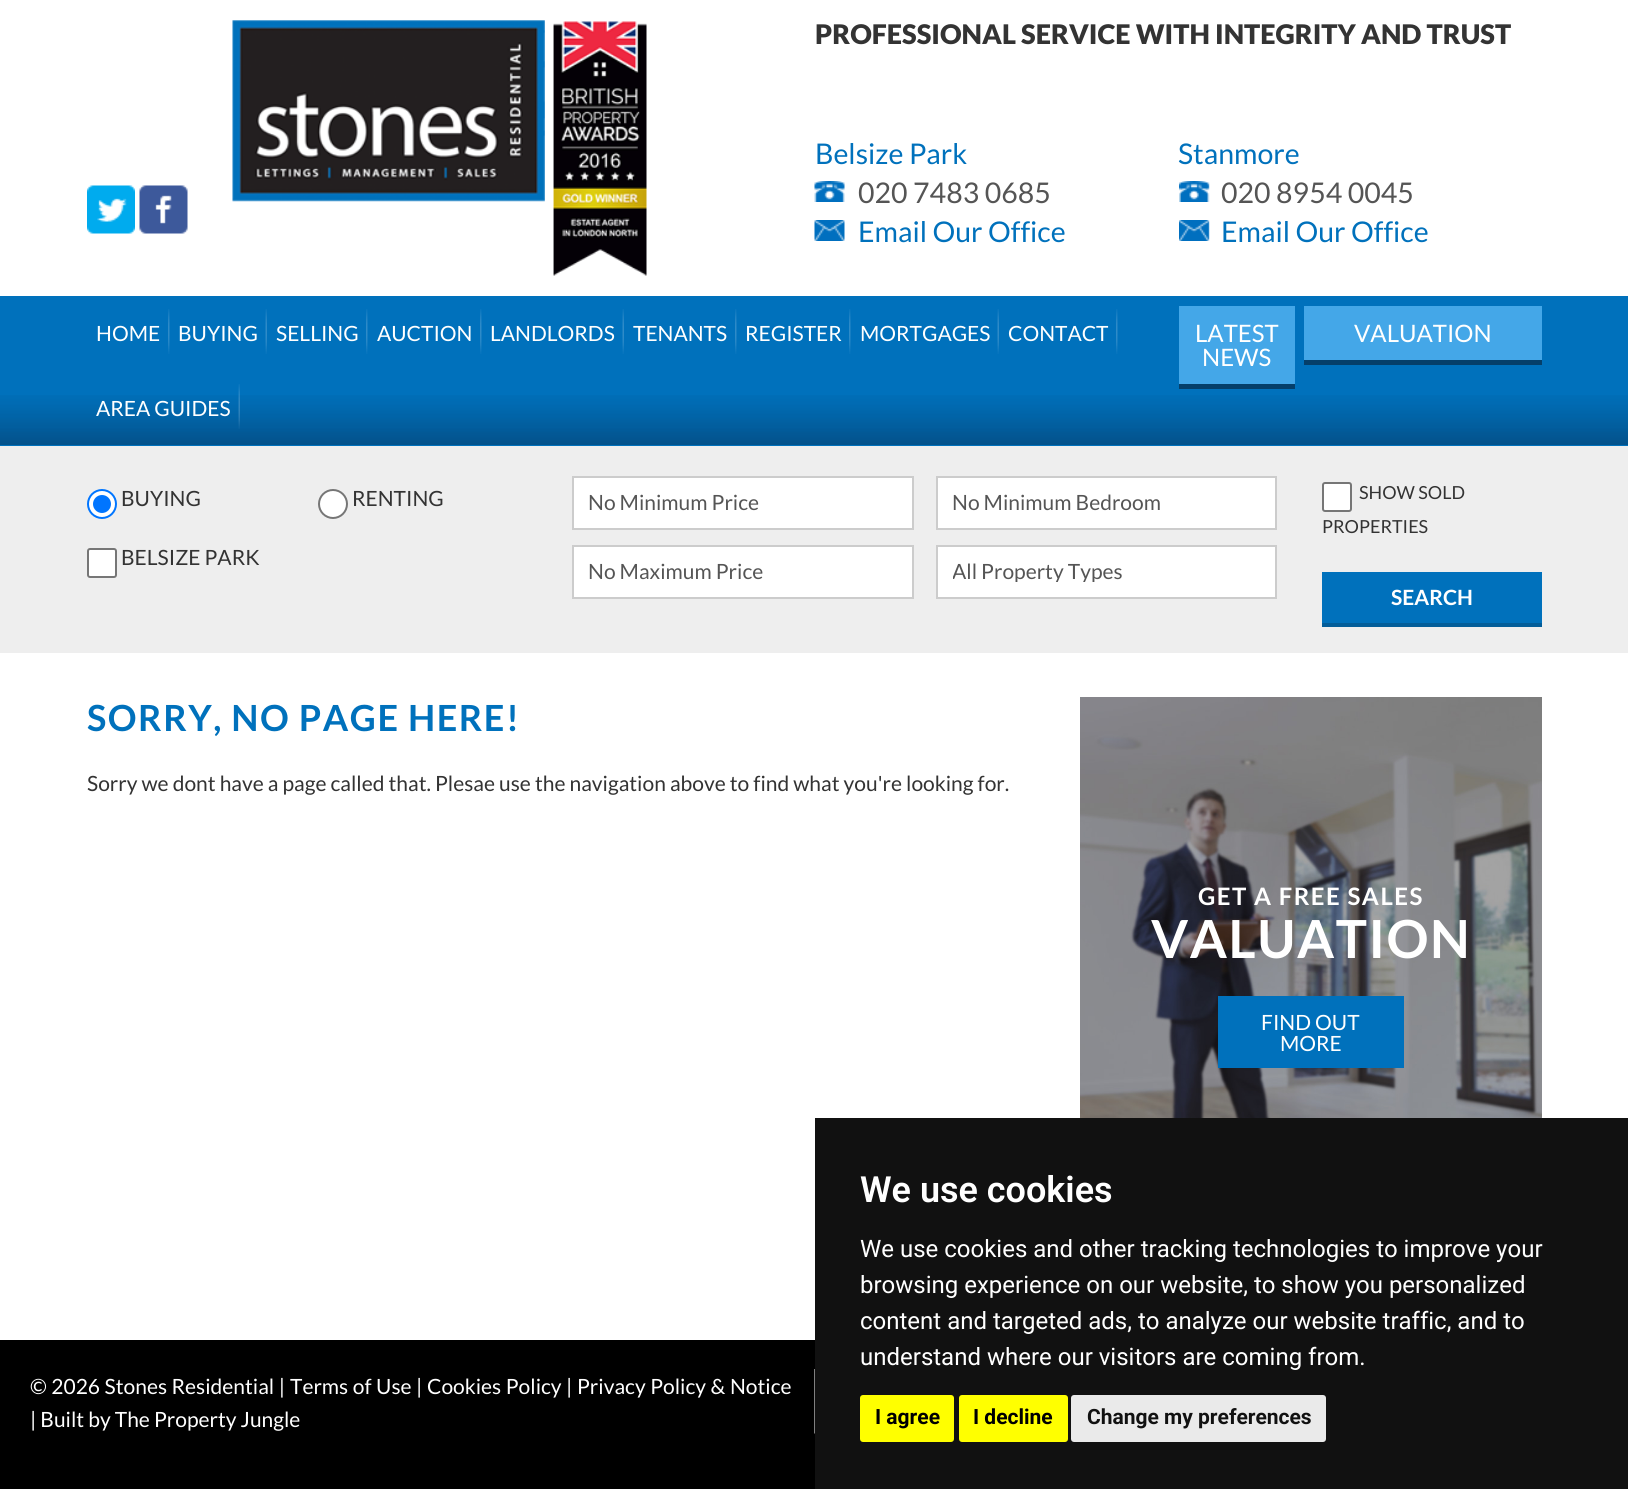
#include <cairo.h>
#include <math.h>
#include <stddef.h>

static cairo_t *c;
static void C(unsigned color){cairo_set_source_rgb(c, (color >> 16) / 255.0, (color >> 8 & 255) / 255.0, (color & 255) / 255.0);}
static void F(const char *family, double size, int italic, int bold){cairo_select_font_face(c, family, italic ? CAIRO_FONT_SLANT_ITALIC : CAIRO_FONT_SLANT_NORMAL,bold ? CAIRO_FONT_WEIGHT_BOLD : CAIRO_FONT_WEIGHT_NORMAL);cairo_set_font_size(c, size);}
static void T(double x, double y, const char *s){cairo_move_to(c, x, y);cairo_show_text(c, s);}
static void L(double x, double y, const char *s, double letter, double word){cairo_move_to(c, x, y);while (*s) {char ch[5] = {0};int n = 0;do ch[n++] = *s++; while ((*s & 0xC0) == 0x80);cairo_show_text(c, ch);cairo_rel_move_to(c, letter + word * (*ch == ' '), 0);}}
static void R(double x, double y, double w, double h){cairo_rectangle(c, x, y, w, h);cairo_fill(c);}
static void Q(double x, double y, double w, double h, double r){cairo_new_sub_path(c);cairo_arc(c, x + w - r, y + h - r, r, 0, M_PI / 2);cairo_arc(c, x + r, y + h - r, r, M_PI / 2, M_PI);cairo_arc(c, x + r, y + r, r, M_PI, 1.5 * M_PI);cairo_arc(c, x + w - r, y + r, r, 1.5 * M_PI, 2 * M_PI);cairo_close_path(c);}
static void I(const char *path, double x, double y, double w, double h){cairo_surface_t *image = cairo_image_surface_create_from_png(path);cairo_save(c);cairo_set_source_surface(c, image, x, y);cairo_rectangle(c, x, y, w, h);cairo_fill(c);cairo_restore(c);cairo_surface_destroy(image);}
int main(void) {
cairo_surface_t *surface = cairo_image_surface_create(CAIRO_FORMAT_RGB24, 1628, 1489);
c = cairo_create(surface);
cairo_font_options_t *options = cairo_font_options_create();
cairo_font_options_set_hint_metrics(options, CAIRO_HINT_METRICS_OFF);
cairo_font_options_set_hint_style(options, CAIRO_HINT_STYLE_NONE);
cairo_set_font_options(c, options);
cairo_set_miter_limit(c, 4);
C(0xffffff);
cairo_paint(c);
I("1.png",87,185,48,49);
I("2.png",139,185,49,49);
I("3.png",232,20,415,256);
F("Lato Black",27,0,0);
C(0x333333);
T(815,44,"PROFESSIONAL SERVICE WITH INTEGRITY AND TRUST");
F("Lato",28.5,0,0);
C(0x0071bc);
T(815,164,"Belsize Park");
I("4.png",814,181,31,21);
C(0x555555);
T(858,203,"020 7483 0685");
I("5.png",814,220,31,21);
C(0x0071bc);
T(858,242,"Email Our Office");
T(1178,164,"Stanmore");
I("6.png",1179,181,31,21);
C(0x555555);
T(1221,203,"020 8954 0045");
I("7.png",1179,220,31,21);
C(0x0071bc);
T(1221,242,"Email Our Office");
R(0,296,1628,150);
I("8.png",0,395,1628,50);
I("9.png",168,309,2,45);
F("Lato",21,0,0);
C(0xffffff);
T(96,341,"HOME");
I("10.png",265,309,2,45);
T(178,341,"BUYING");
I("9.png",366,309,2,45);
T(276,341,"SELLING");
I("9.png",480,309,2,45);
T(377,341,"AUCTION");
I("10.png",622,309,2,45);
T(490,341,"LANDLORDS");
I("9.png",735,309,2,45);
T(633,341,"TENANTS");
I("9.png",849,309,2,45);
T(745,341,"REGISTER");
I("10.png",997,309,2,45);
T(860,341,"MORTGAGES");
I("9.png",1116,309,2,45);
T(1008,341,"CONTACT");
I("11.png",238,384,2,45);
T(96,416,"AREA GUIDES");
C(0x053f6a);
cairo_new_path(c);
cairo_move_to(c,1179,384);
cairo_line_to(c,1179,389);
cairo_line_to(c,1295,389);
cairo_line_to(c,1295,311);
cairo_line_to(c,1294,311);
cairo_line_to(c,1294,384);
cairo_close_path(c);
cairo_fill(c);
C(0x44a7e8);
R(1179,306,116,78);
F("Lato",24,0,0);
C(0xffffff);
T(1195,342,"LATEST");
T(1202,366,"NEWS");
C(0x053f6a);
R(1304,360,238,5);
C(0x44a7e8);
R(1304,306,238,54);
C(0xffffff);
T(1354,342,"VALUATION");
C(0xeeeeee);
R(0,446,1628,207);
C(0xffffff);
cairo_new_path(c);
cairo_arc(c,102,504,14,0,2 * M_PI);
cairo_fill_preserve(c);
C(0x0075ff);
cairo_stroke(c);
cairo_arc(c,102,504,9,0,2 * M_PI);
cairo_fill(c);
F("Lato",21,0,0);
C(0x333333);
T(121,506,"BUYING");
C(0xffffff);
cairo_new_path(c);
cairo_arc(c,333,504,14,0,2 * M_PI);
cairo_fill_preserve(c);
C(0x767676);
cairo_stroke(c);
C(0x333333);
T(352,506,"RENTING");
C(0xffffff);
Q(88,549,28,28,2);
cairo_fill_preserve(c);
C(0x767676);
cairo_stroke(c);
C(0x333333);
T(121,565,"BELSIZE PARK");
C(0xffffff);
cairo_rectangle(c,573,477,340,52);
cairo_fill_preserve(c);
C(0xcccccc);
cairo_stroke(c);
C(0x555555);
T(588,510,"No Minimum Price");
C(0xffffff);
cairo_rectangle(c,573,546,340,52);
cairo_fill_preserve(c);
C(0xcccccc);
cairo_stroke(c);
C(0x555555);
T(588,579,"No Maximum Price");
C(0xffffff);
cairo_rectangle(c,937,477,339,52);
cairo_fill_preserve(c);
C(0xcccccc);
cairo_stroke(c);
C(0x555555);
T(952,510,"No Minimum Bedroom");
C(0xffffff);
cairo_rectangle(c,937,546,339,52);
cairo_fill_preserve(c);
C(0xcccccc);
cairo_stroke(c);
cairo_save(c);
cairo_rectangle(c,953,561,307,21);
cairo_clip(c);
C(0x555555);
T(952,579,"All Property Types");
cairo_restore(c);
C(0xffffff);
Q(1323,483,28,28,2);
cairo_fill_preserve(c);
C(0x767676);
cairo_stroke(c);
F("Lato",18,0,0);
C(0x333333);
T(1359,499,"SHOW SOLD");
T(1322,533,"PROPERTIES");
C(0x035d99);
R(1322,623,220,4);
C(0x0071bc);
R(1322,572,220,51);
F("Lato",21,0,1);
C(0xffffff);
T(1391,605,"SEARCH");
F("Lato",36,0,1);
C(0x0071bc);
L(87,731,"SORRY, NO PAGE HERE!",1.5,0);
F("Lato",21,0,0);
C(0x333333);
T(87,791,"Sorry we dont have a page called that. Plesae use the navigation above to find what you're looking for.");
I("12.png",1080,697,462,421);
F("Lato",24,0,1);
C(0xffffff);
L(1198,905,"GET A FREE SALES",1.5,0);
F("Lato",52.5,0,1);
L(1151,958,"VALUATION",1.5,0);
C(0x0071bc);
R(1218,996,186,72);
F("Lato",21,0,0);
C(0xffffff);
T(1261,1030,"FIND OUT");
T(1280,1051,"MORE");
C(0x000000);
R(0,1340,815,149);
C(0xffffff);
L(30,1394,"© 2026 Stones Residential |",0,.5);
L(290,1394,"Terms of Use",0,.5);
T(416,1394,"|");
L(427,1394,"Cookies Policy",0,.5);
T(566,1394,"|");
L(577,1394,"Privacy Policy & Notice",0,.5);
T(30,1427,"| Built by The Property Jungle");
I("13.png",814,1369,1,65);
C(0x111111);
R(815,1118,813,371);
F("Roboto SemiBold",36,0,0);
C(0xffffff);
T(860,1202,"We use cookies");
F("Roboto",24,0,0);
T(860,1257,"We use cookies and other tracking technologies to improve your");
T(860,1293,"browsing experience on our website, to show you personalized");
T(860,1329,"content and targeted ads, to analyze our website traffic, and to");
T(860,1365,"understand where our visitors are coming from.");
C(0xffff00);
Q(860,1395,94,47,3);
cairo_fill(c);
F("Roboto",21,0,1);
C(0x000000);
T(875,1424,"I agree");
C(0xffff00);
Q(959,1395,109,47,3);
cairo_fill(c);
C(0x000000);
T(973,1424,"I decline");
C(0xeaeaea);
Q(1071,1395,255,47,3);
cairo_fill(c);
C(0x111111);
T(1087,1424,"Change my preferences");
cairo_surface_write_to_png(surface, "o.png");
cairo_font_options_destroy(options);
cairo_destroy(c);
cairo_surface_destroy(surface);
return 0;
}
